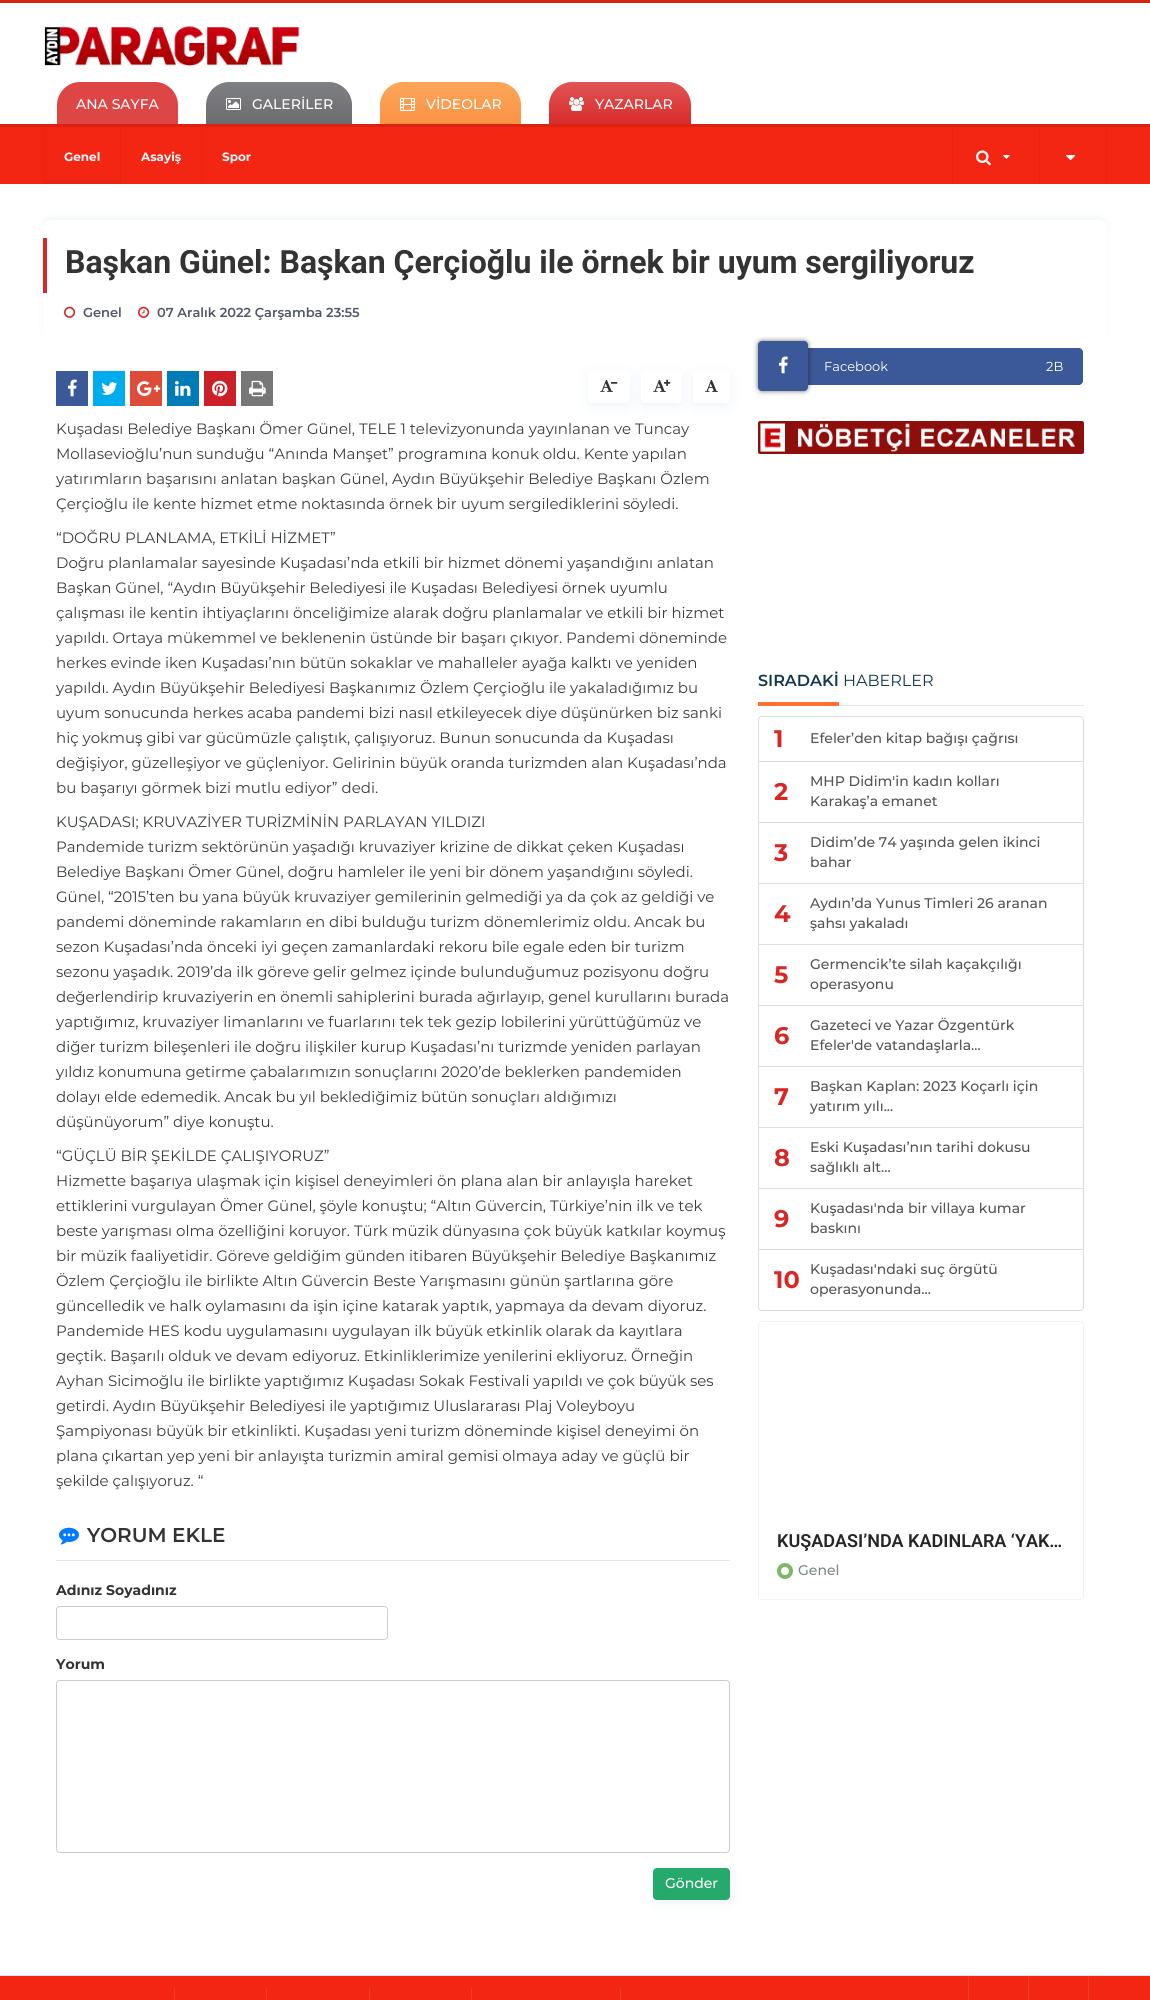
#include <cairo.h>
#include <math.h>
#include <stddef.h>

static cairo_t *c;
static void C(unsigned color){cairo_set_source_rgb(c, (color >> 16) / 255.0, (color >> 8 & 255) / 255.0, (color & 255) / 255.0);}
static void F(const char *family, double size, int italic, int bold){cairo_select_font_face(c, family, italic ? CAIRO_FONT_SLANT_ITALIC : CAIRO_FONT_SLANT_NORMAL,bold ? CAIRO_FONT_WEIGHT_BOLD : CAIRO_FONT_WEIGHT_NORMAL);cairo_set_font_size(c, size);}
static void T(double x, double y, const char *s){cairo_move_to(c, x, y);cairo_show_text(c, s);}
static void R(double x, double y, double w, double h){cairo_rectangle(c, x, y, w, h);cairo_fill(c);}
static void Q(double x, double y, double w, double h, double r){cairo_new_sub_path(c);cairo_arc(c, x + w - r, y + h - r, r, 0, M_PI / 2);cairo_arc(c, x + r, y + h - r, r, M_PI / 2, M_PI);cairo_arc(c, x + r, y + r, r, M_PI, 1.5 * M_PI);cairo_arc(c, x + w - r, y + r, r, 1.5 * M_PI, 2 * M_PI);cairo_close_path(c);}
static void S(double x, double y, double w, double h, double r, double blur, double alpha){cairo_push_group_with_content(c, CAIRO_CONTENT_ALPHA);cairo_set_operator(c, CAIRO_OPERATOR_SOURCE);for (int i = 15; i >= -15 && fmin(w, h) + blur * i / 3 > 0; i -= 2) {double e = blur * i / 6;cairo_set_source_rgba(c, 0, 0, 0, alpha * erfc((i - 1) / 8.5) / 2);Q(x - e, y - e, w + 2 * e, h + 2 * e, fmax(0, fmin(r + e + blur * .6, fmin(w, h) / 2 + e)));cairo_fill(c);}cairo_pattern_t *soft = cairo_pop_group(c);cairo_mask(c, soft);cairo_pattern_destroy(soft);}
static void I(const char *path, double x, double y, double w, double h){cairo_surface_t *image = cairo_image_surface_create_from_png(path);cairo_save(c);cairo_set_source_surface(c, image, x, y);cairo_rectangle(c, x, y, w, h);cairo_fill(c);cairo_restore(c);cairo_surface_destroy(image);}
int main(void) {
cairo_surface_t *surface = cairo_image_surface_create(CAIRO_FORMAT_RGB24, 1150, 2000);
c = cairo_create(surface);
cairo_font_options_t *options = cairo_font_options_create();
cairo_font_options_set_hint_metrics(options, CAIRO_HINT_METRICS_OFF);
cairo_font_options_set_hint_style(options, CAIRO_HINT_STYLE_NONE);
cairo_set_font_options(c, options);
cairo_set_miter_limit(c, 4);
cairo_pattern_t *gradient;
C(0xffffff);
cairo_paint(c);
C(0xda2211);
R(0,0,1150,3);
I("1.png",44,26,256,40);
C(0xde4645);
cairo_new_path(c);
cairo_move_to(c,80,82);
cairo_line_to(c,155,82);
cairo_curve_to(c,167.5,82,178,92.5,178,105);
cairo_line_to(c,178,124);
cairo_line_to(c,57,124);
cairo_line_to(c,57,105);
cairo_curve_to(c,57,92.5,67.5,82,80,82);
cairo_close_path(c);
cairo_fill(c);
F("Montserrat Medium",14,0,0);
C(0xffffff);
T(76,109,"ANA SAYFA");
gradient = cairo_pattern_create_linear(279,82,279,124);
cairo_pattern_add_color_stop_rgba(gradient,0,0.498,0.502,0.514,1);
cairo_pattern_add_color_stop_rgba(gradient,1,0.424,0.424,0.435,1);
cairo_set_source(c,gradient);
cairo_pattern_destroy(gradient);
cairo_new_path(c);
cairo_move_to(c,229,82);
cairo_line_to(c,329,82);
cairo_curve_to(c,341.5,82,352,92.5,352,105);
cairo_line_to(c,352,124);
cairo_line_to(c,206,124);
cairo_line_to(c,206,105);
cairo_curve_to(c,206,92.5,216.5,82,229,82);
cairo_close_path(c);
cairo_fill(c);
I("2.png",226,98,15,12);
C(0xffffff);
T(252,109,"GALERİLER");
gradient = cairo_pattern_create_linear(451,82,451,124);
cairo_pattern_add_color_stop_rgba(gradient,0,0.988,0.651,0.345,1);
cairo_pattern_add_color_stop_rgba(gradient,1,0.984,0.573,0.275,1);
cairo_set_source(c,gradient);
cairo_pattern_destroy(gradient);
cairo_new_path(c);
cairo_move_to(c,403,82);
cairo_line_to(c,498,82);
cairo_curve_to(c,510.5,82,521,92.5,521,105);
cairo_line_to(c,521,124);
cairo_line_to(c,380,124);
cairo_line_to(c,380,105);
cairo_curve_to(c,380,92.5,390.5,82,403,82);
cairo_close_path(c);
cairo_fill(c);
I("3.png",400,98,15,13);
C(0xffffff);
T(426,109,"VİDEOLAR");
gradient = cairo_pattern_create_linear(620,82,620,124);
cairo_pattern_add_color_stop_rgba(gradient,0,0.878,0.329,0.329,1);
cairo_pattern_add_color_stop_rgba(gradient,1,0.851,0.173,0.169,1);
cairo_set_source(c,gradient);
cairo_pattern_destroy(gradient);
cairo_new_path(c);
cairo_move_to(c,572,82);
cairo_line_to(c,668,82);
cairo_curve_to(c,680.5,82,691,92.5,691,105);
cairo_line_to(c,691,124);
cairo_line_to(c,549,124);
cairo_line_to(c,549,105);
cairo_curve_to(c,549,92.5,559.5,82,572,82);
cairo_close_path(c);
cairo_fill(c);
I("4.png",569,97,15,14);
C(0xffffff);
T(595,109,"YAZARLAR");
C(0xf22613);
R(0,127,1150,57);
C(0xda2211);
R(0,124,1150,3);
C(0xe82412);
R(1106,127,1,57);
R(43,127,1,57);
F("Montserrat",12,0,1);
C(0xf6f9fb);
T(64,161,"Genel");
C(0xe82412);
R(44,180,76,4);
R(120,127,1,57);
C(0xf6f9fb);
T(141,161,"Asayiş");
C(0xe82412);
R(201,127,1,57);
C(0xf6f9fb);
T(222,161,"Spor");
C(0xe82412);
R(952,127,1,57);
I("5.png",976,150,15,16);
I("6.png",1003,155,7,4);
R(1039,127,1,57);
I("7.png",1066,155,10,6);
C(0x6e8398);
S(43,216,1064,121,8,4,.08);
C(0xffffff);
cairo_new_path(c);
cairo_move_to(c,51,220);
cairo_line_to(c,1099,220);
cairo_curve_to(c,1103.5,220,1107,223.5,1107,228);
cairo_line_to(c,1107,341);
cairo_line_to(c,43,341);
cairo_line_to(c,43,228);
cairo_curve_to(c,43,223.5,46.5,220,51,220);
cairo_close_path(c);
cairo_fill(c);
C(0xd82726);
R(43,238,4,55);
F("Roboto",32,0,1);
C(0x333333);
T(65,273,"Başkan Günel: Başkan Çerçioğlu ile örnek bir uyum sergiliyoruz");
I("8.png",64,306,12,12);
F("Montserrat SemiBold",13,0,0);
C(0x515669);
T(83,317,"Genel");
I("9.png",138,306,12,12);
T(157,317,"07 Aralık 2022 Çarşamba 23:55");
C(0x3b5998);
R(56,371,32,35);
I("10.png",67,379,10,18);
C(0x00aced);
R(93,371,32,35);
I("11.png",101,382,17,13);
C(0xdd4b39);
R(130,371,32,35);
I("12.png",137,381,24,15);
C(0x007bb6);
R(167,371,32,35);
I("13.png",175,381,16,15);
C(0xcb2027);
R(204,371,32,35);
I("14.png",212,380,16,17);
C(0x777777);
R(241,371,32,35);
I("15.png",249,380,17,17);
C(0xeef3f7);
S(588,374,42,32,4,6,1);
C(0xffffff);
Q(588,371,42,32,4);
cairo_fill(c);
I("16.png",600,380,13,12);
I("17.png",611,382,7,2);
C(0xeef3f7);
S(641,374,41,32,4,6,1);
C(0xffffff);
Q(641,371,41,32,4);
cairo_fill(c);
I("16.png",653,380,13,12);
I("18.png",664,379,7,7);
C(0xeef3f7);
S(693,374,37,32,4,6,1);
C(0xffffff);
Q(693,371,37,32,4);
cairo_fill(c);
I("16.png",705,380,13,12);
F("Montserrat",15,0,0);
C(0x3a3e3f);
T(56,434,"Kuşadası Belediye Başkanı Ömer Günel, TELE 1 televizyonunda yayınlanan ve Tuncay");
T(56,459,"Mollasevioğlu’nun sunduğu “Anında Manşet” programına konuk oldu. Kente yapılan");
T(56,484,"yatırımların başarısını anlatan başkan Günel, Aydın Büyükşehir Belediye Başkanı Özlem");
T(56,509,"Çerçioğlu ile kente hizmet etme noktasında örnek bir uyum sergilediklerini söyledi.");
T(56,543,"“DOĞRU PLANLAMA, ETKİLİ HİZMET”");
T(56,568,"Doğru planlamalar sayesinde Kuşadası’nda etkili bir hizmet dönemi yaşandığını anlatan");
T(56,593,"Başkan Günel, “Aydın Büyükşehir Belediyesi ile Kuşadası Belediyesi örnek uyumlu");
T(56,618,"çalışması ile kentin ihtiyaçlarını önceliğimize alarak doğru planlamalar ve etkili bir hizmet");
T(56,643,"yapıldı. Ortaya mükemmel ve beklenenin üstünde bir başarı çıkıyor. Pandemi döneminde");
T(56,668,"herkes evinde iken Kuşadası’nın bütün sokaklar ve mahalleler ayağa kalktı ve yeniden");
T(56,693,"yapıldı. Aydın Büyükşehir Belediyesi Başkanımız Özlem Çerçioğlu ile yakaladığımız bu");
T(56,718,"uyum sonucunda herkes acaba pandemi bizi nasıl etkileyecek diye düşünürken biz sanki");
T(56,743,"hiç yokmuş gibi var gücümüzle çalıştık, çalışıyoruz. Bunun sonucunda da Kuşadası");
T(56,768,"değişiyor, güzelleşiyor ve güçleniyor. Gelirinin büyük oranda turizmden alan Kuşadası’nda");
T(56,793,"bu başarıyı görmek bizi mutlu ediyor” dedi.");
T(56,827,"KUŞADASI; KRUVAZİYER TURİZMİNİN PARLAYAN YILDIZI");
T(56,852,"Pandemide turizm sektörünün yaşadığı kruvaziyer krizine de dikkat çeken Kuşadası");
T(56,877,"Belediye Başkanı Ömer Günel, doğru hamleler ile yeni bir dönem yaşandığını söyledi.");
T(56,902,"Günel, “2015’ten bu yana büyük kruvaziyer gemilerinin gelmediği ya da çok az geldiği ve");
T(56,927,"pandemi döneminde rakamların en dibi bulduğu turizm dönemlerimiz oldu. Ancak bu");
T(56,952,"sezon Kuşadası’nda önceki iyi geçen zamanlardaki rekoru bile egale eden bir turizm");
T(56,977,"sezonu yaşadık. 2019’da ilk göreve gelir gelmez içinde bulunduğumuz pozisyonu doğru");
T(56,1002,"değerlendirip kruvaziyerin en önemli sahiplerini burada ağırlayıp, genel kurullarını burada");
T(56,1027,"yaptığımız, kruvaziyer limanlarını ve fuarlarını tek tek gezip lobilerini yürüttüğümüz ve");
T(56,1052,"diğer turizm bileşenleri ile doğru ilişkiler kurup Kuşadası’nı turizmde yeniden parlayan");
T(56,1077,"yıldız konumuna getirme çabalarımızın sonuçlarını 2020’de beklerken pandemiden");
T(56,1102,"dolayı elde edemedik. Ancak bu yıl beklediğimiz bütün sonuçları aldığımızı");
T(56,1127,"düşünüyorum” diye konuştu.");
T(56,1161,"“GÜÇLÜ BİR ŞEKİLDE ÇALIŞIYORUZ”");
T(56,1186,"Hizmette başarıya ulaşmak için kişisel deneyimleri ön plana alan bir anlayışla hareket");
T(56,1211,"ettiklerini vurgulayan Ömer Günel, şöyle konuştu; “Altın Güvercin, Türkiye’nin ilk ve tek");
T(56,1236,"beste yarışması olma özelliğini koruyor. Türk müzik dünyasına çok büyük katkılar koymuş");
T(56,1261,"bir müzik faaliyetidir. Göreve geldiğim günden itibaren Büyükşehir Belediye Başkanımız");
T(56,1286,"Özlem Çerçioğlu ile birlikte Altın Güvercin Beste Yarışmasını günün şartlarına göre");
T(56,1311,"güncelledik ve halk oylamasını da işin içine katarak yaptık, yapmaya da devam diyoruz.");
T(56,1336,"Pandemide HES kodu uygulamasını uygulayan ilk büyük etkinlik olarak da kayıtlara");
T(56,1361,"geçtik. Başarılı olduk ve devam ediyoruz. Etkinliklerimize yenilerini ekliyoruz. Örneğin");
T(56,1386,"Ayhan Sicimoğlu ile birlikte yaptığımız Kuşadası Sokak Festivali yapıldı ve çok büyük ses");
T(56,1411,"getirdi. Aydın Büyükşehir Belediyesi ile yaptığımız Uluslararası Plaj Voleyboyu");
T(56,1436,"Şampiyonası büyük bir etkinlikti. Kuşadası yeni turizm döneminde kişisel deneyimi ön");
T(56,1461,"plana çıkartan yep yeni bir anlayışta turizmin amiral gemisi olmaya aday ve güçlü bir");
T(56,1486,"şekilde çalışıyoruz. “");
C(0xe6e6e6);
R(56,1560,674,1);
I("19.png",59,1527,20,18);
F("Montserrat SemiBold",20,0,0);
C(0x333333);
T(87,1542,"YORUM EKLE");
F("Montserrat",14,0,1);
T(56,1595,"Adınız Soyadınız");
Q(56.5,1606.5,331,33,3.5);
C(0xcccccc);
cairo_set_line_width(c,1);
cairo_stroke(c);
C(0x333333);
T(56,1669,"Yorum");
Q(56.5,1680.5,673,172,3.5);
C(0xcccccc);
cairo_stroke(c);
C(0xeef3f7);
S(653,1871,77,32,4,6,1);
C(0x26aa6c);
Q(653,1868,77,32,4);
cairo_fill(c);
F("Montserrat Medium",14,0,0);
C(0xffffff);
T(665,1888,"Gönder");
C(0x3b5998);
R(808,348,190,37);
C(0x000000);
S(758,341,50,50,4,2.5,.57);
C(0x3b5998);
Q(758,341,50,50,4);
cairo_fill(c);
I("10.png",778,356,10,18);
F("Montserrat",13,0,0);
C(0xffffff);
T(824,371,"Facebook");
C(0x3b5998);
cairo_new_path(c);
cairo_move_to(c,998,348);
cairo_line_to(c,1079,348);
cairo_curve_to(c,1081,348,1083,350,1083,352);
cairo_line_to(c,1083,381);
cairo_curve_to(c,1083,383,1081,385,1079,385);
cairo_line_to(c,998,385);
cairo_close_path(c);
cairo_fill(c);
C(0xffffff);
T(1046,371,"2B");
I("20.png",758,421,326,33);
C(0xe6e6e6);
R(839,705,245,1);
F("Montserrat SemiBold",16,0,0);
C(0x13394e);
T(758,686,"SIRADAKİ");
C(0xfd722f);
R(758,702,81,4);
F("Montserrat",16,0,0);
C(0x13394e);
T(843,686,"HABERLER");
cairo_new_path(c);
cairo_move_to(c,762,716.5);
cairo_line_to(c,1080,716.5);
cairo_curve_to(c,1082,716.5,1083.5,718,1083.5,720);
cairo_line_to(c,1083.5,761.5);
cairo_line_to(c,758.5,761.5);
cairo_line_to(c,758.5,720);
cairo_curve_to(c,758.5,718,760,716.5,762,716.5);
cairo_close_path(c);
C(0xdddddd);
cairo_stroke(c);
F("Montserrat",24,0,1);
C(0xd82826);
T(774,747,"1");
F("Montserrat Medium",14,0,0);
C(0x555555);
T(810,743,"Efeler’den kitap bağışı çağrısı");
cairo_rectangle(c,758.5,761.5,325,61);
C(0xdddddd);
cairo_stroke(c);
F("Montserrat",24,0,1);
C(0xd82826);
T(774,800,"2");
F("Montserrat Medium",14,0,0);
C(0x555555);
T(810,786,"MHP Didim'in kadın kolları");
T(810,806,"Karakaş’a emanet");
cairo_rectangle(c,758.5,822.5,325,61);
C(0xdddddd);
cairo_stroke(c);
F("Montserrat",24,0,1);
C(0xd82826);
T(774,861,"3");
F("Montserrat Medium",14,0,0);
C(0x555555);
T(810,847,"Didim’de 74 yaşında gelen ikinci");
T(810,867,"bahar");
cairo_rectangle(c,758.5,883.5,325,61);
C(0xdddddd);
cairo_stroke(c);
F("Montserrat",24,0,1);
C(0xd82826);
T(774,922,"4");
F("Montserrat Medium",14,0,0);
C(0x555555);
T(810,908,"Aydın’da Yunus Timleri 26 aranan");
T(810,928,"şahsı yakaladı");
cairo_rectangle(c,758.5,944.5,325,61);
C(0xdddddd);
cairo_stroke(c);
F("Montserrat",24,0,1);
C(0xd82826);
T(774,983,"5");
F("Montserrat Medium",14,0,0);
C(0x555555);
T(810,969,"Germencik’te silah kaçakçılığı");
T(810,989,"operasyonu");
cairo_rectangle(c,758.5,1005.5,325,61);
C(0xdddddd);
cairo_stroke(c);
F("Montserrat",24,0,1);
C(0xd82826);
T(774,1044,"6");
F("Montserrat Medium",14,0,0);
C(0x555555);
T(810,1030,"Gazeteci ve Yazar Özgentürk");
T(810,1050,"Efeler'de vatandaşlarla...");
cairo_rectangle(c,758.5,1066.5,325,61);
C(0xdddddd);
cairo_stroke(c);
F("Montserrat",24,0,1);
C(0xd82826);
T(774,1105,"7");
F("Montserrat Medium",14,0,0);
C(0x555555);
T(810,1091,"Başkan Kaplan: 2023 Koçarlı için");
T(810,1111,"yatırım yılı...");
cairo_rectangle(c,758.5,1127.5,325,61);
C(0xdddddd);
cairo_stroke(c);
F("Montserrat",24,0,1);
C(0xd82826);
T(774,1166,"8");
F("Montserrat Medium",14,0,0);
C(0x555555);
T(810,1152,"Eski Kuşadası’nın tarihi dokusu");
T(810,1172,"sağlıklı alt...");
cairo_rectangle(c,758.5,1188.5,325,61);
C(0xdddddd);
cairo_stroke(c);
F("Montserrat",24,0,1);
C(0xd82826);
T(774,1227,"9");
F("Montserrat Medium",14,0,0);
C(0x555555);
T(810,1213,"Kuşadası'nda bir villaya kumar");
T(810,1233,"baskını");
C(0xffffff);
cairo_new_path(c);
cairo_move_to(c,758.5,1249.5);
cairo_line_to(c,1083.5,1249.5);
cairo_line_to(c,1083.5,1307);
cairo_curve_to(c,1083.5,1309,1082,1310.5,1080,1310.5);
cairo_line_to(c,762,1310.5);
cairo_curve_to(c,760,1310.5,758.5,1309,758.5,1307);
cairo_close_path(c);
cairo_fill_preserve(c);
C(0xdddddd);
cairo_stroke(c);
F("Montserrat",24,0,1);
C(0xd82826);
T(774,1288,"10");
F("Montserrat Medium",14,0,0);
C(0x555555);
T(810,1274,"Kuşadası'ndaki suç örgütü");
T(810,1294,"operasyonunda...");
Q(758.5,1321.5,325,278,3.5);
C(0xeef3f7);
cairo_stroke(c);
C(0xffffff);
R(759,1597,324,2);
F("Roboto SemiBold",18,0,0);
C(0x252525);
T(777,1547,"KUŞADASI’NDA KADINLARA ‘YAK…");
cairo_new_path(c);
cairo_arc(c,785,1571,6,0,2 * M_PI);
C(0x7db869);
cairo_set_line_width(c,4);
cairo_stroke(c);
F("Montserrat Medium",14,0,0);
C(0x7d8688);
T(798,1575,"Genel");
C(0xf22613);
R(0,1976,1150,24);
C(0xdfe9ee);
R(0,1975,1150,1);
C(0xf43c2b);
R(174,1988,1,12);
R(266,1988,1,12);
R(369,1988,1,12);
R(471,1988,1,12);
R(620,1988,1,12);
R(968,1976,1,24);
R(1028,1976,1,24);
R(1088,1976,1,24);
cairo_surface_write_to_png(surface, "o.png");
cairo_font_options_destroy(options);
cairo_destroy(c);
cairo_surface_destroy(surface);
return 0;
}
